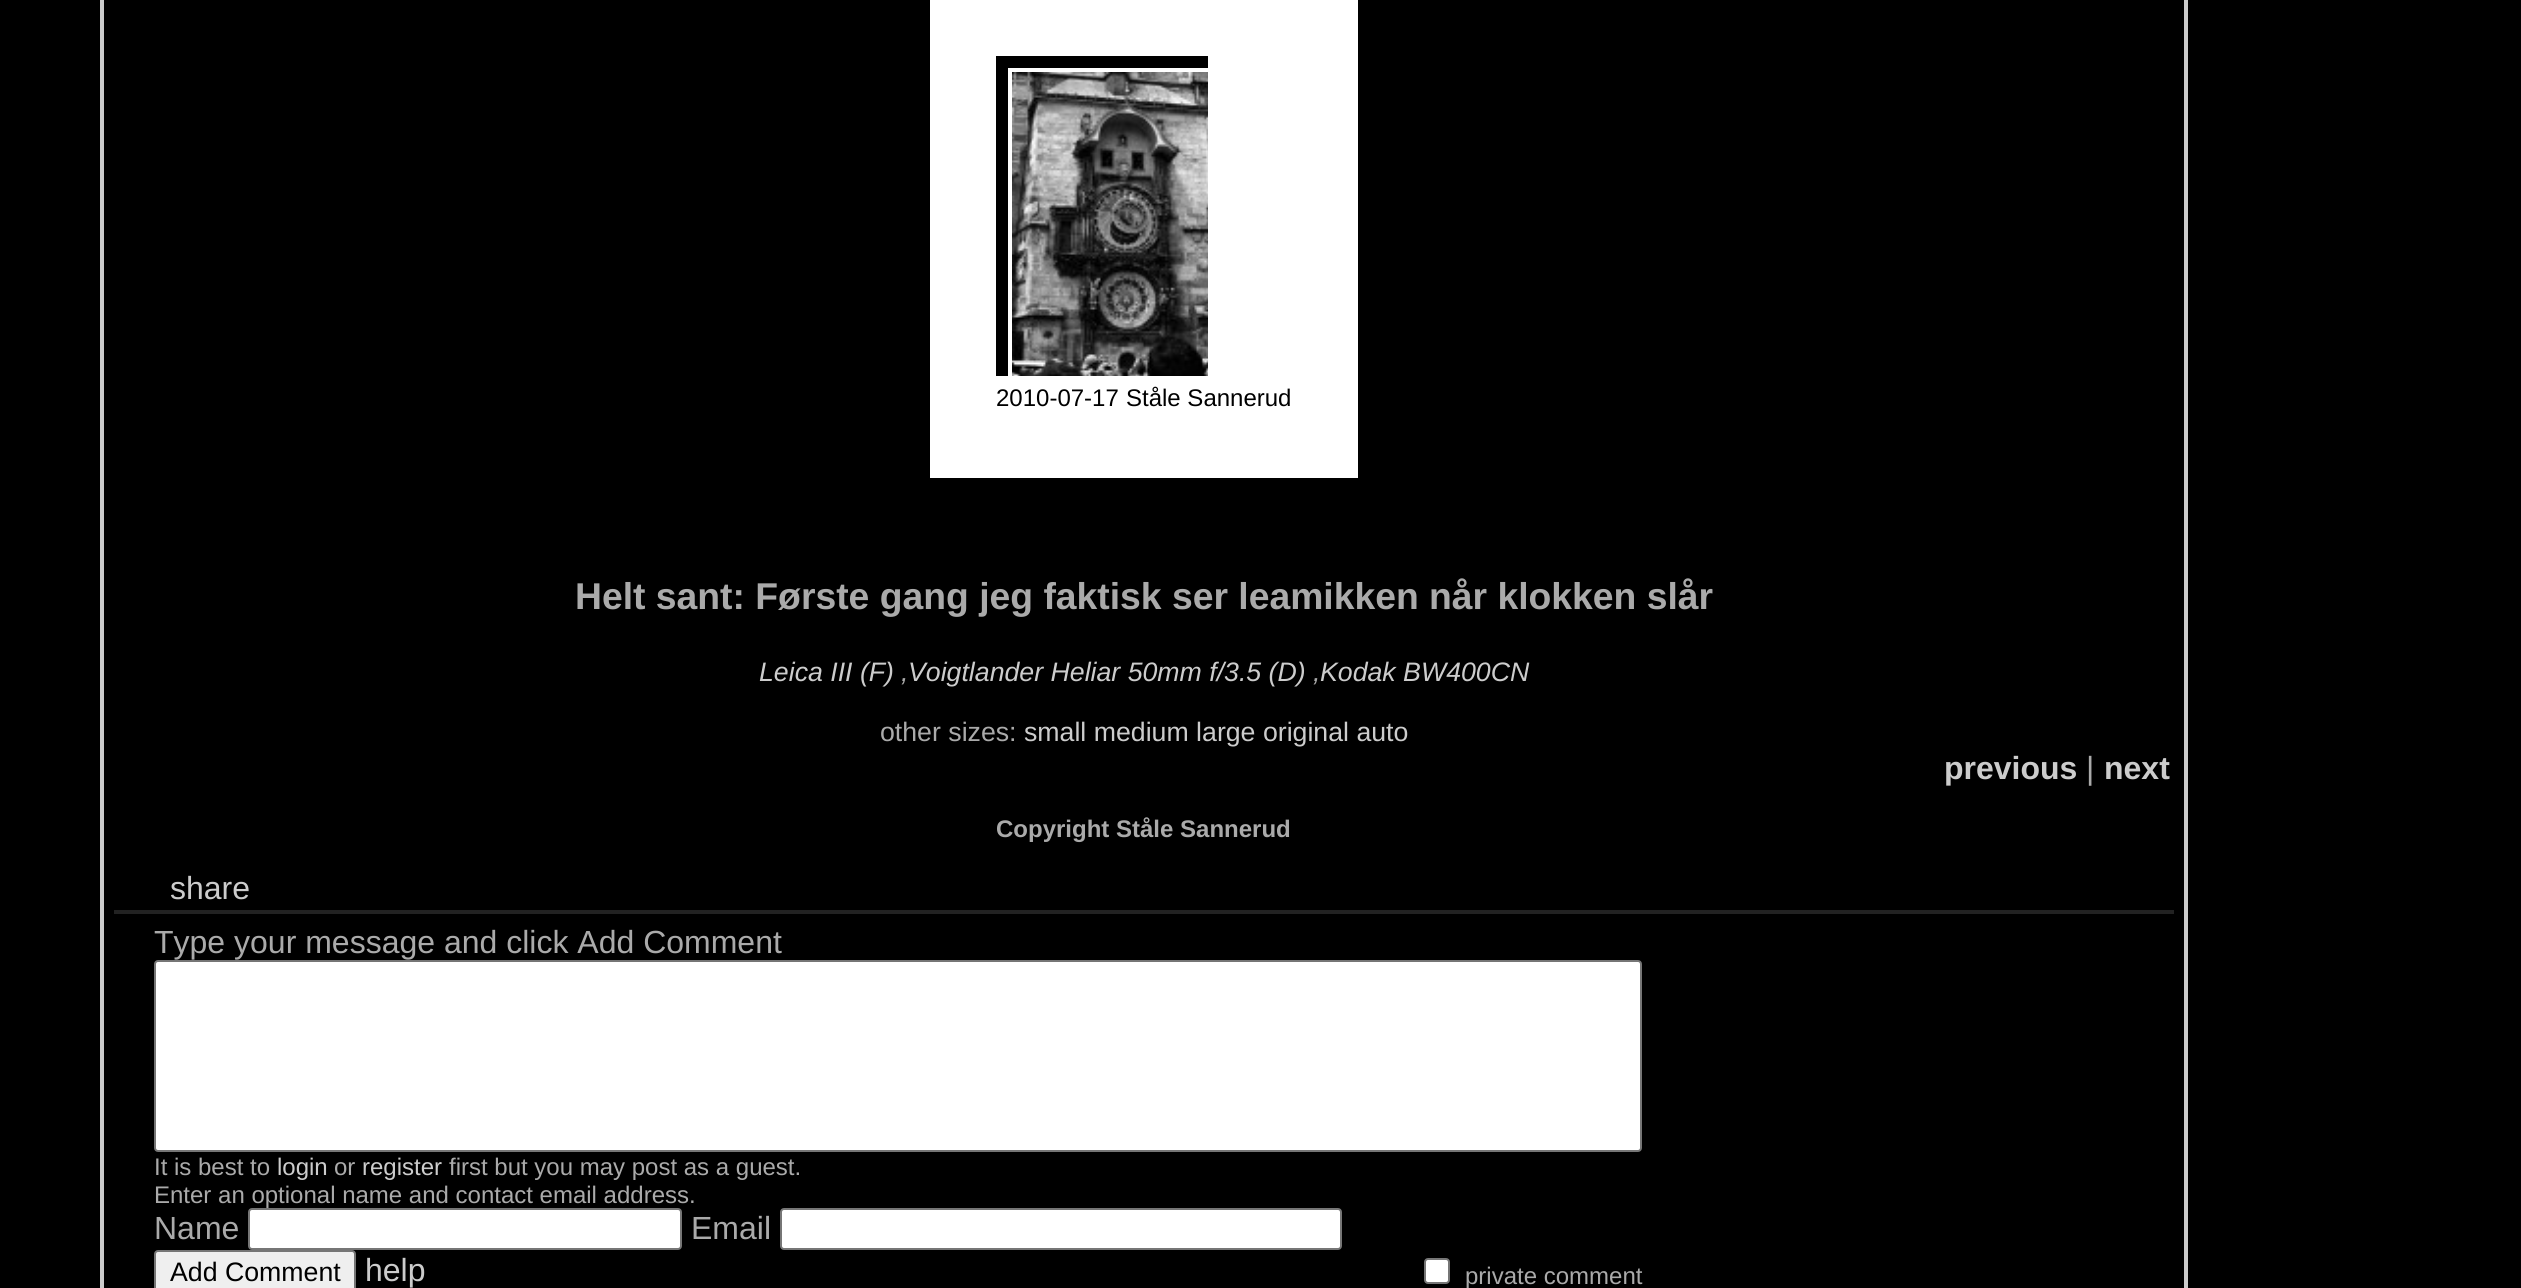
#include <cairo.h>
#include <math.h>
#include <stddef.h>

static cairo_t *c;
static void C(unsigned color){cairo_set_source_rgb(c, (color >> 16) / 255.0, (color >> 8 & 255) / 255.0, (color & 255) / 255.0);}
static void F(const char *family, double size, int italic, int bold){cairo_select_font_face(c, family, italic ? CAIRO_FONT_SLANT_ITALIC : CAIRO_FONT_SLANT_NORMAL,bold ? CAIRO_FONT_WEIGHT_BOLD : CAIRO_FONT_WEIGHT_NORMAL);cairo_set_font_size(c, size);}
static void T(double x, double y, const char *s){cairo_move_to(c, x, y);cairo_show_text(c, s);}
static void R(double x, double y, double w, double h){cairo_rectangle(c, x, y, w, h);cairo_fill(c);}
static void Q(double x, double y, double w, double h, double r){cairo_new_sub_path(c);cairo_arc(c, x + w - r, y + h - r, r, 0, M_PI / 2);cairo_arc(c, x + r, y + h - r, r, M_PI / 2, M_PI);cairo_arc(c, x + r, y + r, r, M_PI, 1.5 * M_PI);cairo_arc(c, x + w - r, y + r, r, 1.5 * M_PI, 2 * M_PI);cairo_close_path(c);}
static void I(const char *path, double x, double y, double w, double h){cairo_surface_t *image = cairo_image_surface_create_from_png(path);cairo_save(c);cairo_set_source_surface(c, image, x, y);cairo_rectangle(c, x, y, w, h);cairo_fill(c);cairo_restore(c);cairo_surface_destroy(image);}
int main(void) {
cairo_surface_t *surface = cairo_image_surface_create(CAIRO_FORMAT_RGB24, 2521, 1288);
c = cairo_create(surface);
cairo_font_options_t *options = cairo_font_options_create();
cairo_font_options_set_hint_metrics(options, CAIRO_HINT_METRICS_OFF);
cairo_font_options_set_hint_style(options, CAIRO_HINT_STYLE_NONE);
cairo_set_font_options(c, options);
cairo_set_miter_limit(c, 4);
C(0x000000);
cairo_paint(c);
cairo_rectangle(c,102,-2,2084,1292);
C(0xcccccc);
cairo_set_line_width(c,4);
cairo_stroke(c);
C(0xffffff);
R(930,0,428,478);
cairo_save(c);
cairo_rectangle(c,996,56,212,320);
cairo_clip(c);
cairo_rectangle(c,1002,62,228,334);
C(0x000000);
cairo_set_line_width(c,12);
cairo_stroke(c);
cairo_restore(c);
I("1.png",1012,72,196,304);
F("Liberation Sans",24,0,0);
C(0x000000);
T(996,406,"2010-07-17");
T(1126,406,"Ståle Sannerud");
F("Liberation Sans",37.3,0,1);
C(0xaaaaaa);
T(575,609,"Helt sant: Første gang jeg faktisk ser leamikken når klokken slår");
F("Liberation Sans",26.7,1,0);
C(0xcccccc);
T(759,681,"Leica III (F)");
C(0xaaaaaa);
T(901,681,",");
C(0xcccccc);
T(908,681,"Voigtlander Heliar 50mm f/3.5 (D)");
C(0xaaaaaa);
T(1313,681,",");
C(0xcccccc);
T(1320,681,"Kodak BW400CN");
F("Liberation Sans",26.7,0,0);
C(0xaaaaaa);
T(880,741,"other sizes:");
C(0xcccccc);
T(1024,741,"small medium large original auto");
F("Liberation Sans",32,0,1);
T(1944,779,"previous");
F("Liberation Sans",32,0,0);
C(0xaaaaaa);
T(2086,779,"|");
F("Liberation Sans",32,0,1);
C(0xcccccc);
T(2104,779,"next");
F("Liberation Sans",24,0,1);
C(0xaaaaaa);
T(996,837,"Copyright Ståle Sannerud");
F("Liberation Sans",32,0,0);
C(0xcccccc);
T(170,899,"share");
C(0x222222);
R(114,910,2060,4);
C(0xaaaaaa);
T(154,953,"Type your message and click Add Comment");
C(0xffffff);
Q(155,961,1486,190,3);
cairo_fill_preserve(c);
C(0x767676);
cairo_set_line_width(c,2);
cairo_stroke(c);
F("Liberation Sans",24,0,0);
C(0xaaaaaa);
T(154,1175,"It is best to");
C(0xcccccc);
T(277,1175,"login");
C(0xaaaaaa);
T(334,1175,"or");
C(0xcccccc);
T(362,1175,"register");
C(0xaaaaaa);
T(449,1175,"first but you may post as a guest.");
T(154,1203,"Enter an optional name and contact email address.");
F("Liberation Sans",32,0,0);
T(154,1239,"Name");
C(0xffffff);
Q(249,1209,432,40,3);
cairo_fill_preserve(c);
C(0x767676);
cairo_stroke(c);
C(0xaaaaaa);
T(691,1239,"Email");
C(0xffffff);
Q(781,1209,560,40,3);
cairo_fill_preserve(c);
C(0x767676);
cairo_stroke(c);
C(0xefefef);
Q(155,1251,200,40,3);
cairo_fill_preserve(c);
C(0x767676);
cairo_stroke(c);
F("Liberation Sans",26.7,0,0);
C(0x000000);
T(170,1281,"Add Comment");
F("Liberation Sans",32,0,0);
C(0xcccccc);
T(365,1281,"help");
C(0xffffff);
Q(1425,1259,24,24,3);
cairo_fill_preserve(c);
C(0x767676);
cairo_stroke(c);
F("Liberation Sans",24,0,0);
C(0xaaaaaa);
T(1465,1284,"private comment");
cairo_surface_write_to_png(surface, "o.png");
cairo_font_options_destroy(options);
cairo_destroy(c);
cairo_surface_destroy(surface);
return 0;
}
